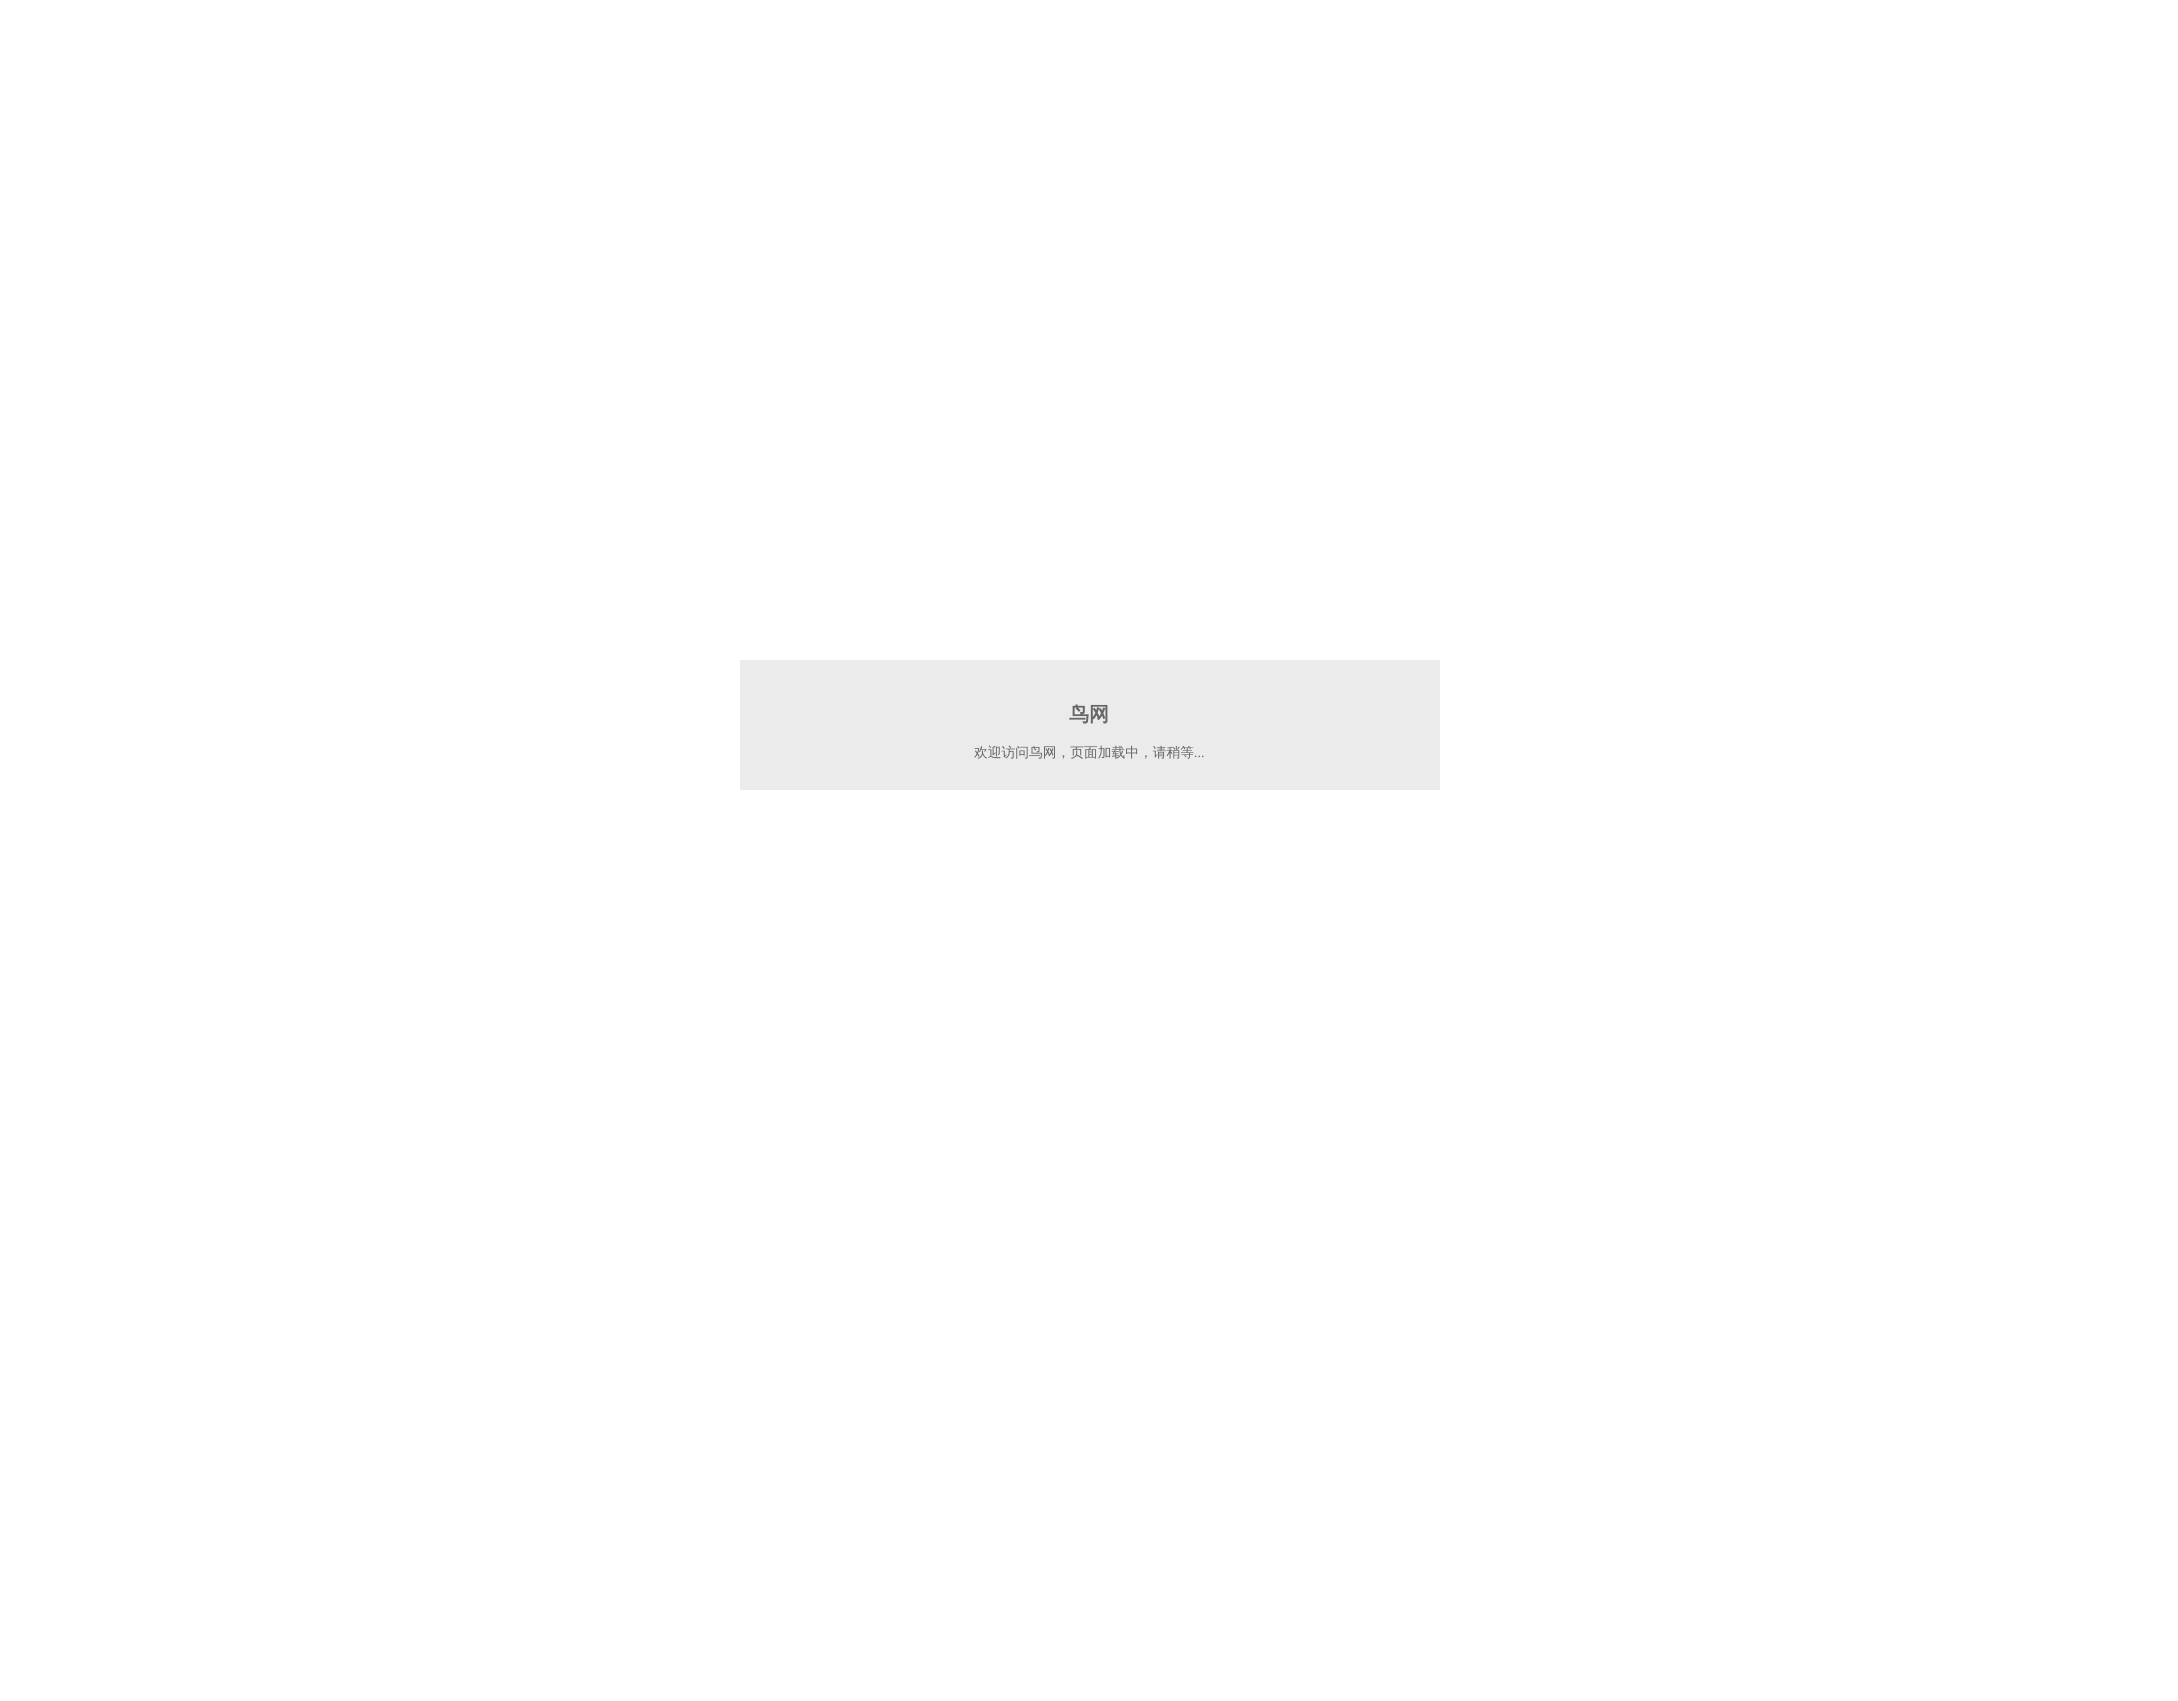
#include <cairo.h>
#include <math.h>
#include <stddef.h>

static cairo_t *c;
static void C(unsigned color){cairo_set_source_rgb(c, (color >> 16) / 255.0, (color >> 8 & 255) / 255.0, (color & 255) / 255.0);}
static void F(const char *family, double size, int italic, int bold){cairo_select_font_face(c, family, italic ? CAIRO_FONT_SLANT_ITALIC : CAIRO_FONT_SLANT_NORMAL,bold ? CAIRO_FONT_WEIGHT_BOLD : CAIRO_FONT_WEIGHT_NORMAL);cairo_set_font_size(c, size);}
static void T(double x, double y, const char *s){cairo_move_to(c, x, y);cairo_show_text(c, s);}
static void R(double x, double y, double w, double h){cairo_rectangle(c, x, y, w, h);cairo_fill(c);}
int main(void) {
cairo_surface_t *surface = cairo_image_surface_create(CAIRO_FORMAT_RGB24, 2178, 1701);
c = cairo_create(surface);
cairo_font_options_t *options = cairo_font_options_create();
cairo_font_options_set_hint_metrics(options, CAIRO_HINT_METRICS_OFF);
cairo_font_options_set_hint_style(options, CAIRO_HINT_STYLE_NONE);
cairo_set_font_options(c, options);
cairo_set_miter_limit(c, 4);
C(0xffffff);
cairo_paint(c);
C(0xebebeb);
R(740,660,700,130);
F("WenQuanYi Zen Hei",20,0,1);
C(0x666666);
T(1069,721,"鸟网");
F("WenQuanYi Zen Hei Medium",13.75,0,0);
T(974,757,"欢迎访问鸟网，页面加载中，请稍等");
F("Liberation Serif",13.75,0,0);
T(1194,757,"...");
cairo_surface_write_to_png(surface, "o.png");
cairo_font_options_destroy(options);
cairo_destroy(c);
cairo_surface_destroy(surface);
return 0;
}
